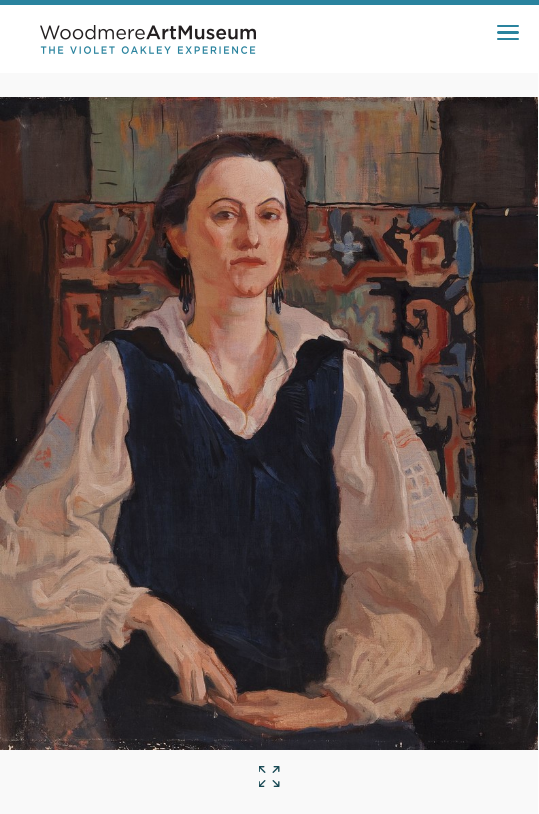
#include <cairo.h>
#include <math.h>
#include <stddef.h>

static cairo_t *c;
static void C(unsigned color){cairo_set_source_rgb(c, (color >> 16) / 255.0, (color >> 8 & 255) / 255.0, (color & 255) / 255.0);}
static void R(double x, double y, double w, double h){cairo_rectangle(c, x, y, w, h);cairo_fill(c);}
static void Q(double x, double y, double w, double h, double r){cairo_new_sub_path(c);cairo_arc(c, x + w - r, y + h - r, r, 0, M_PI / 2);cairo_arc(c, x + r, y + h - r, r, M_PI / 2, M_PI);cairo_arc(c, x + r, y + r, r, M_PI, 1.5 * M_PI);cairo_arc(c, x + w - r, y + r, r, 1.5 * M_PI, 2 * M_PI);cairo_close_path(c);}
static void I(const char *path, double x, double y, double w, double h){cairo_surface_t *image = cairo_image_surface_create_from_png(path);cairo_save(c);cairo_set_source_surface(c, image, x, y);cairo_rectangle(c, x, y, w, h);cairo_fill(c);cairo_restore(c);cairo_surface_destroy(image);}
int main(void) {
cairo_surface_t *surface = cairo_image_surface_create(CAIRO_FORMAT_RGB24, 539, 814);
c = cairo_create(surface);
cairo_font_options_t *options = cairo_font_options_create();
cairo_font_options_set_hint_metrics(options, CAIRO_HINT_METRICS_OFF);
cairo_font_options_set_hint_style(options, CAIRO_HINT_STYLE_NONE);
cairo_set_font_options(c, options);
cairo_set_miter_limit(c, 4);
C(0xffffff);
cairo_paint(c);
C(0x2a839e);
R(0,0,539,5);
I("1.png",40,25,216,29);
Q(497,25,22,2,1);
cairo_fill(c);
Q(497,31,22,3,1.5);
cairo_fill(c);
Q(497,38,22,2,1);
cairo_fill(c);
C(0xf9f9f9);
R(0,73,538,741);
I("2.png",0,97,538,653);
I("3.png",259,766,21,21);
cairo_surface_write_to_png(surface, "o.png");
cairo_font_options_destroy(options);
cairo_destroy(c);
cairo_surface_destroy(surface);
return 0;
}
